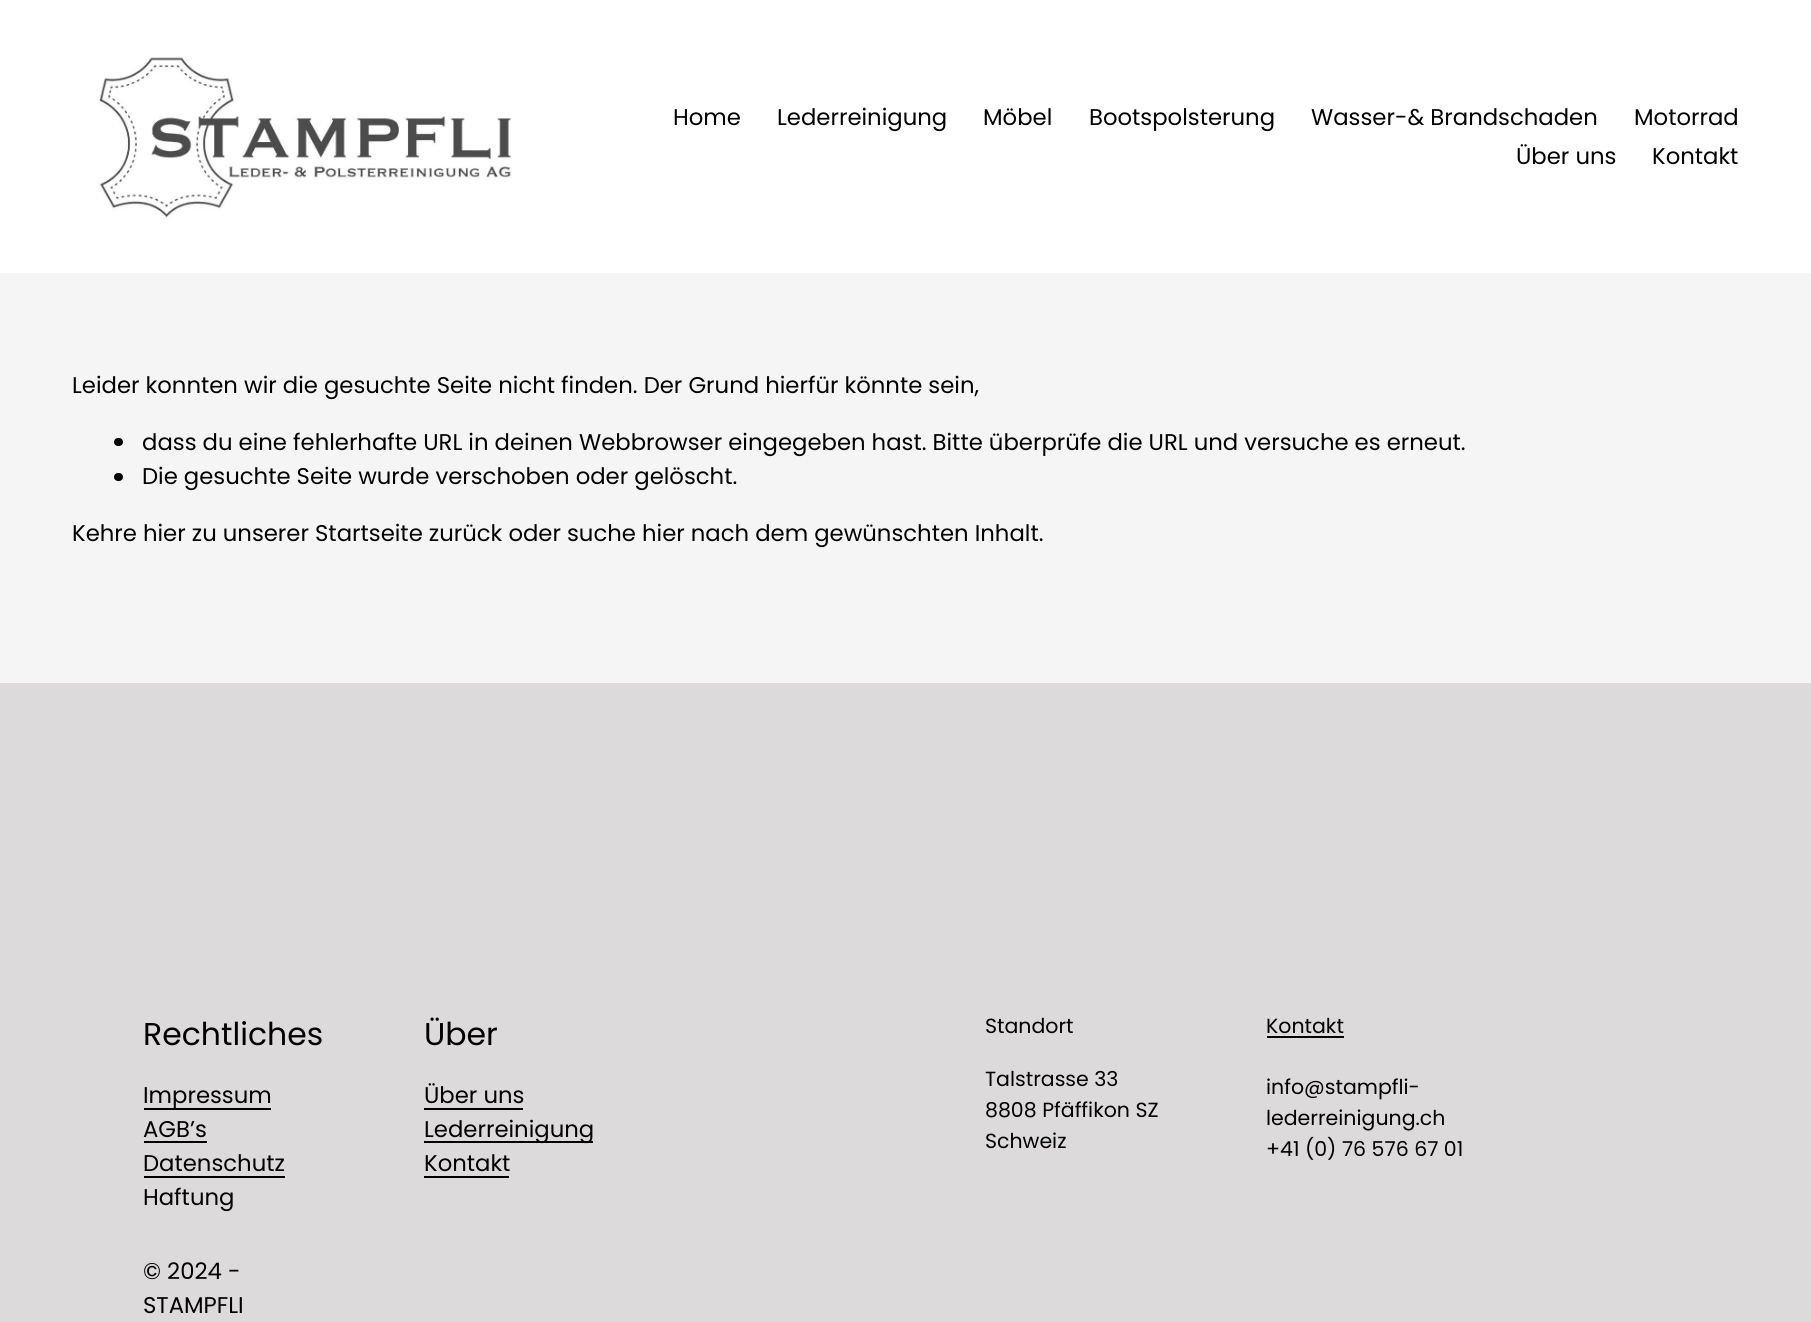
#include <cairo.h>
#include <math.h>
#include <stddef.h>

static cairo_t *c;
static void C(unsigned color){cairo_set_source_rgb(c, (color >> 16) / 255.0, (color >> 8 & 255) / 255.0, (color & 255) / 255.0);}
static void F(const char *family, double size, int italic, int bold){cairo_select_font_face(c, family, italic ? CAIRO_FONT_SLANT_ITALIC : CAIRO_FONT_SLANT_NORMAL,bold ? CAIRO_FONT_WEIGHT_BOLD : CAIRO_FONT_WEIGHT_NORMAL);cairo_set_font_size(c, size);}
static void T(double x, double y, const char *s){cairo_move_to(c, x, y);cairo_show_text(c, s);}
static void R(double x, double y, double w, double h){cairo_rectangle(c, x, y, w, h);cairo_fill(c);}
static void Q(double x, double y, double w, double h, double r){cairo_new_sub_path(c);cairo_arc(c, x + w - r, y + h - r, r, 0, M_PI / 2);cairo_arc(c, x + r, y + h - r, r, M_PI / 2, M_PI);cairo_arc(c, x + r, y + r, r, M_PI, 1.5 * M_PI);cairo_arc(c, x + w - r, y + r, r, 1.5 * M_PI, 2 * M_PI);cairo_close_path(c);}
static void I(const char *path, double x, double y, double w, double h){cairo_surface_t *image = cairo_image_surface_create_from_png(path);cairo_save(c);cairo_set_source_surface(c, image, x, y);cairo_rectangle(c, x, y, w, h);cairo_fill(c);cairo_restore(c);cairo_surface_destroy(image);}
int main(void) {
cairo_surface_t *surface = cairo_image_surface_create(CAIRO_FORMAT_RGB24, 1811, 1322);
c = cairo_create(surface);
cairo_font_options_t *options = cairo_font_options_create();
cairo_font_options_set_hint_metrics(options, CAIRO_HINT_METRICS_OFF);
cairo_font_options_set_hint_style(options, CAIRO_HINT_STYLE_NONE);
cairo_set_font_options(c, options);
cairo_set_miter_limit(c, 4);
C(0xf5f5f5);
cairo_paint(c);
C(0xffffff);
R(0,0,1811,273);
I("1.png",97,56,415,162);
F("Poppins",22.75,0,0);
C(0x000000);
T(673,125,"Home");
T(777,125,"Lederreinigung");
T(983,125,"Möbel");
T(1089,125,"Bootspolsterung");
T(1311,125,"Wasser-& Brandschaden");
T(1634,125,"Motorrad");
T(1516,164,"Über uns");
T(1652,164,"Kontakt");
T(72,393,"Leider konnten wir die gesuchte Seite nicht finden. Der Grund hierfür könnte sein,");
Q(114,438,9,8,4);
cairo_fill(c);
T(142,450,"dass du eine fehlerhafte URL in deinen Webbrowser eingegeben hast. Bitte überprüfe die URL und versuche es erneut.");
Q(114,473,9,8,4);
cairo_fill(c);
T(142,484,"Die gesuchte Seite wurde verschoben oder gelöscht.");
T(72,541,"Kehre hier zu unserer Startseite zurück oder suche hier nach dem gewünschten Inhalt.");
C(0xdcdada);
R(0,683,1811,639);
F("Poppins",31.5,0,0);
C(0x000000);
T(143,1045,"Rechtliches");
T(424,1045,"Über");
F("Poppins",20.5,0,0);
T(985,1033,"Standort");
T(985,1086,"Talstrasse 33");
T(985,1117,"8808 Pfäffikon SZ");
T(985,1148,"Schweiz");
T(1266,1033,"Kontakt");
R(1267,1036,77,2);
T(1266,1094,"info@stampfli-");
T(1266,1125,"lederreinigung.ch");
T(1266,1156,"+41 (0) 76 576 67 01");
R(144,1108,127,2);
F("Poppins",22.75,0,0);
T(143,1103,"Impressum");
T(143,1137,"AGB’s");
R(144,1141,63,2);
T(143,1171,"Datenschutz");
R(144,1176,141,2);
T(143,1205,"Haftung");
T(424,1103,"Über uns");
R(424,1108,99,2);
R(424,1141,169,2);
T(424,1137,"Lederreinigung");
T(424,1171,"Kontakt");
R(424,1176,85,2);
T(143,1279,"© 2024 -");
T(143,1313,"STAMPFLI");
cairo_surface_write_to_png(surface, "o.png");
cairo_font_options_destroy(options);
cairo_destroy(c);
cairo_surface_destroy(surface);
return 0;
}
